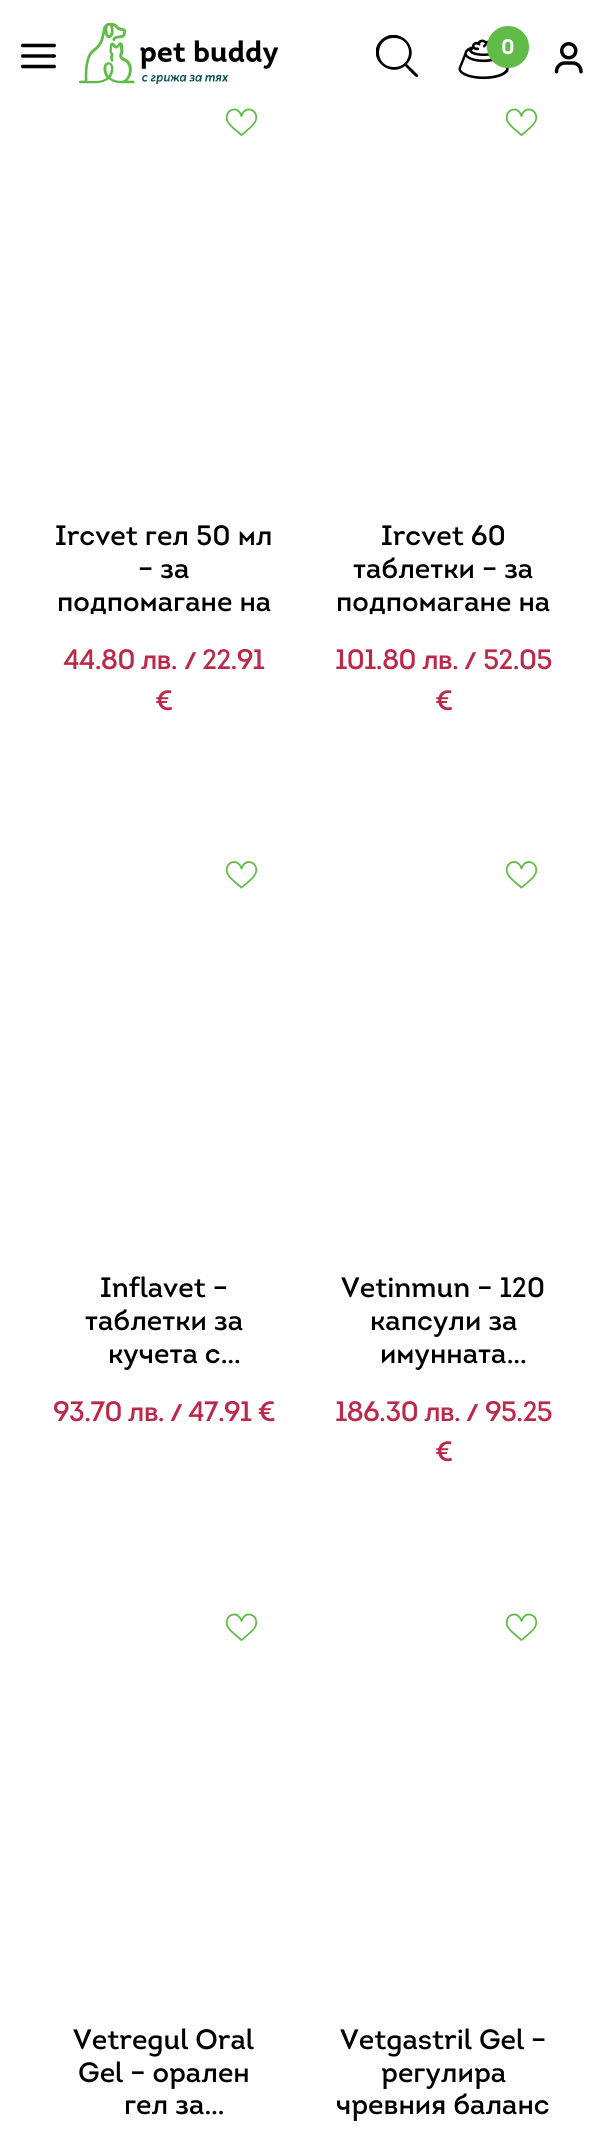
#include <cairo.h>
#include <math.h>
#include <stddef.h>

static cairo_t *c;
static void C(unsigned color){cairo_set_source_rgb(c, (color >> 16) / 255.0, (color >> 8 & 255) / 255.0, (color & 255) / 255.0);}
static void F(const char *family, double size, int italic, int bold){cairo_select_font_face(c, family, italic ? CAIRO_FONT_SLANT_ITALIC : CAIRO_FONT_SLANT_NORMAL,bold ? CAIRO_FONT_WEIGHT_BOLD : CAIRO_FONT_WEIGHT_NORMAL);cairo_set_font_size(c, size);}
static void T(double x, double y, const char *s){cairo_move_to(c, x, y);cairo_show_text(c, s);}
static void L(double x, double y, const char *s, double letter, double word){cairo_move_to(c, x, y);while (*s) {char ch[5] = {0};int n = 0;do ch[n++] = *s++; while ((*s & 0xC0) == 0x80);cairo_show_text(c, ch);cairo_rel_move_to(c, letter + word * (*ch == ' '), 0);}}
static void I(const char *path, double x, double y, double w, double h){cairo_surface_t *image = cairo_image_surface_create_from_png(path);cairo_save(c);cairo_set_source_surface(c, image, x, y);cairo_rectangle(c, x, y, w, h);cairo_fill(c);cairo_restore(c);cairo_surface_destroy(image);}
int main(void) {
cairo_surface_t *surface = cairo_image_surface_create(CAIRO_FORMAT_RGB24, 606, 2129);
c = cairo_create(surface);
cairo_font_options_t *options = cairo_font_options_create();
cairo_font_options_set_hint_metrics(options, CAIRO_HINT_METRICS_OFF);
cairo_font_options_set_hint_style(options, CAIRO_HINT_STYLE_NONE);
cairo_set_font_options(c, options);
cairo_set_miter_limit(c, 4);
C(0xffffff);
cairo_paint(c);
I("1.png",21,43,35,26);
I("2.png",79,23,199,61);
cairo_save(c);
cairo_rectangle(c,376,35,42,42);
cairo_clip(c);
C(0x000000);
cairo_new_path(c);
cairo_move_to(c,418,75);
cairo_line_to(c,407,64);
cairo_curve_to(c,422,48,398,24,381,40);
cairo_curve_to(c,365,56,388,79,405,66);
cairo_curve_to(c,407,68,416,78,417,77);
cairo_curve_to(c,418,77,419,75,418,75);
cairo_close_path(c);
cairo_move_to(c,394,67);
cairo_curve_to(c,374,67,374,38,394,38);
cairo_curve_to(c,414,38,414,67,394,67);
cairo_close_path(c);
cairo_fill(c);
cairo_restore(c);
I("3.png",458,39,51,41);
C(0x61bc47);
cairo_arc(c,508,47,21,0,2 * M_PI);
cairo_fill(c);
F("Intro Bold",21,0,1);
C(0xffffff);
T(501,54,"0");
I("4.png",554,42,29,32);
I("5.png",226,108,31,28);
F("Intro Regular",28,0,0);
C(0x000000);
T(55,545,"Ircvet гел 50 мл");
T(138,578,"– за");
T(57,611,"подпомагане на");
C(0xbc2848);
L(63,669,"44.80 лв.",-.9,0);
F("Intro Bold",24,0,1);
T(184,669,"/");
F("Intro Regular",28,0,0);
L(202,669,"22.91",-.9,0);
L(155,710,"€",-.9,0);
I("5.png",506,108,31,28);
C(0x000000);
T(381,545,"Ircvet 60");
T(353,578,"таблетки – за");
T(336,611,"подпомагане на");
C(0xbc2848);
L(335,669,"101.80 лв.",-.9,0);
F("Intro Bold",24,0,1);
T(464,669,"/");
F("Intro Regular",28,0,0);
L(483,669,"52.05",-.9,0);
L(435,710,"€",-.9,0);
I("6.png",226,861,31,28);
C(0x000000);
T(100,1297,"Inflavet –");
T(85,1330,"таблетки за");
T(108,1363,"кучета с…");
C(0xbc2848);
L(53,1421,"93.70 лв.",-.9,0);
F("Intro Bold",24,0,1);
T(170,1421,"/");
F("Intro Regular",28,0,0);
L(188,1421,"47.91 €",-.9,0);
I("6.png",506,861,31,28);
C(0x000000);
T(341,1297,"Vetinmun – 120");
T(370,1330,"капсули за");
T(380,1363,"имунната…");
C(0xbc2848);
L(335,1421,"186.30 лв.",-.9,0);
F("Intro Bold",24,0,1);
T(466,1421,"/");
F("Intro Regular",28,0,0);
L(485,1421,"95.25",-.9,0);
L(435,1461,"€",-.9,0);
I("5.png",226,1613,31,28);
C(0x000000);
T(73,2049,"Vetregul Oral");
T(78,2082,"Gel – орален");
T(124,2114,"гел за…");
I("5.png",506,1613,31,28);
T(340,2049,"Vetgastril Gel –");
T(381,2082,"регулира");
T(336,2114,"чревния баланс");
cairo_surface_write_to_png(surface, "o.png");
cairo_font_options_destroy(options);
cairo_destroy(c);
cairo_surface_destroy(surface);
return 0;
}
